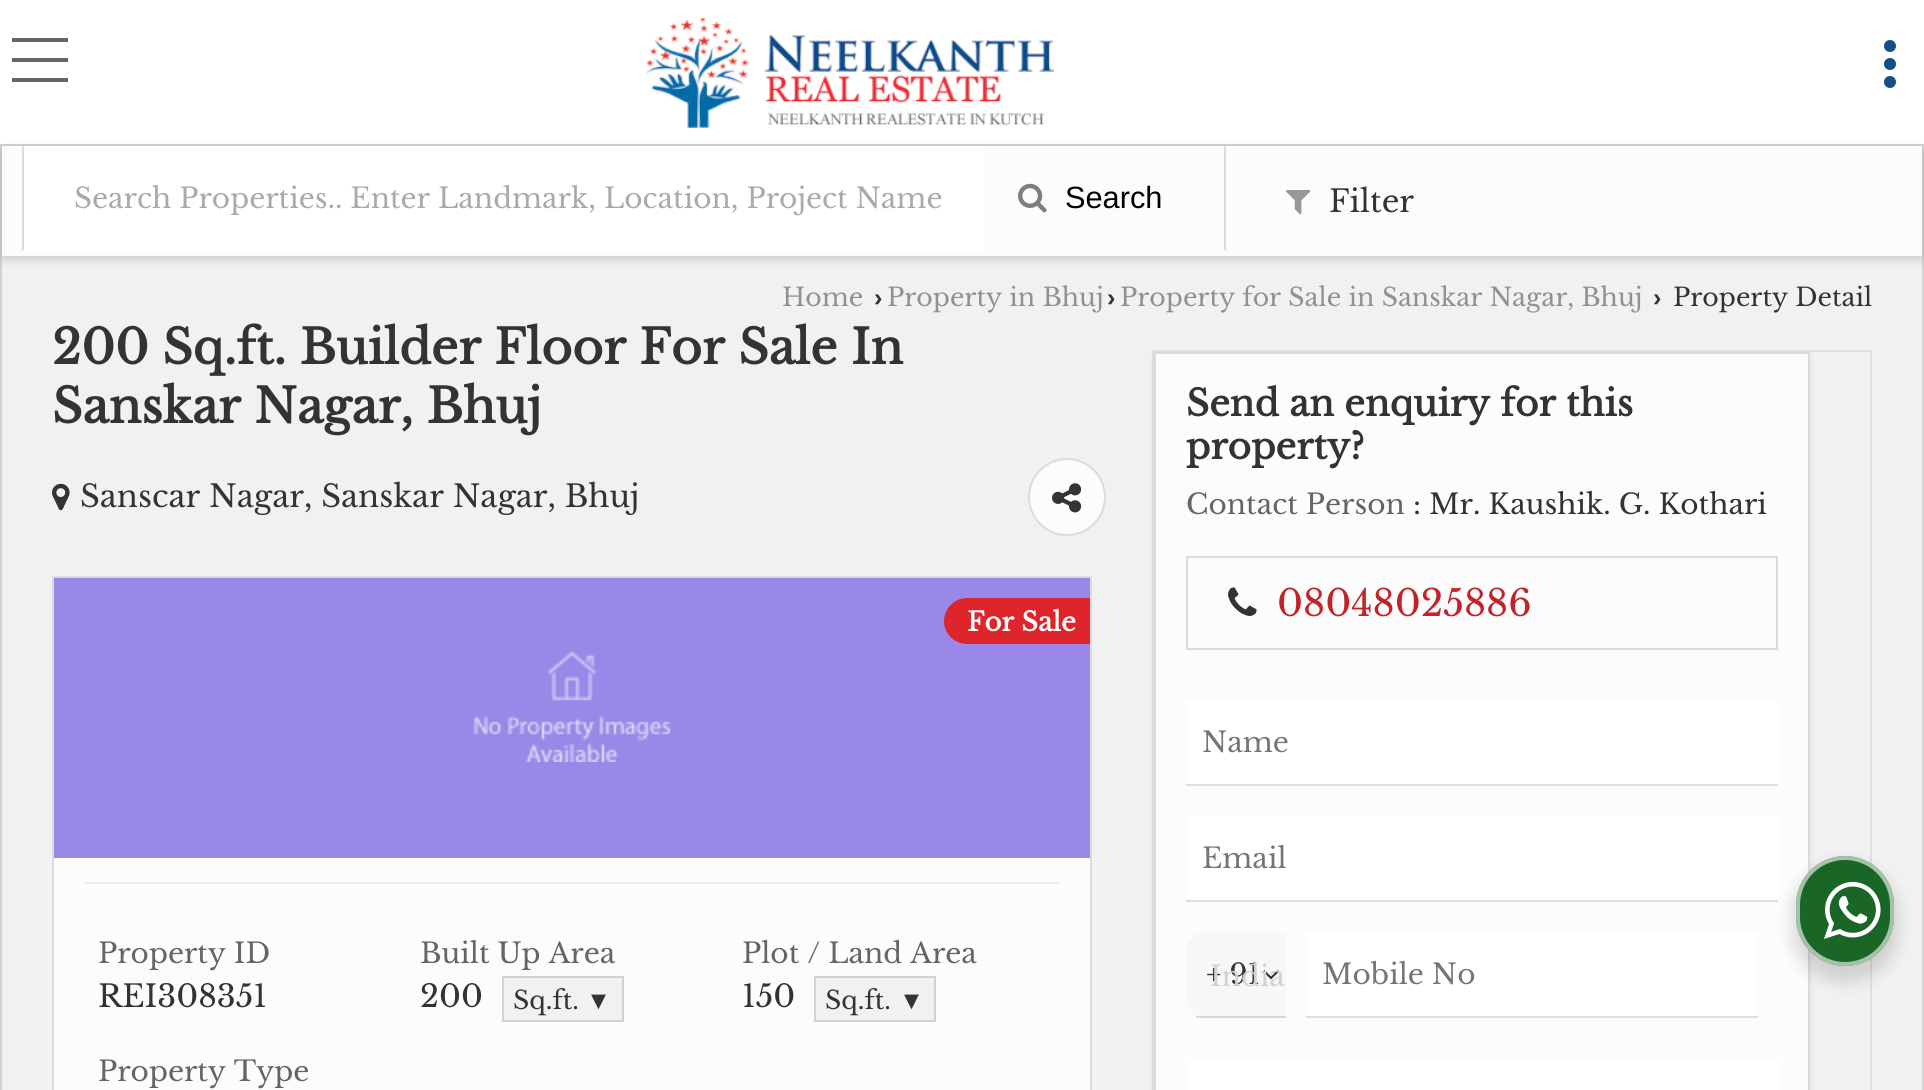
#include <cairo.h>
#include <math.h>
#include <stddef.h>

static cairo_t *c;
static void C(unsigned color){cairo_set_source_rgb(c, (color >> 16) / 255.0, (color >> 8 & 255) / 255.0, (color & 255) / 255.0);}
static void F(const char *family, double size, int italic, int bold){cairo_select_font_face(c, family, italic ? CAIRO_FONT_SLANT_ITALIC : CAIRO_FONT_SLANT_NORMAL,bold ? CAIRO_FONT_WEIGHT_BOLD : CAIRO_FONT_WEIGHT_NORMAL);cairo_set_font_size(c, size);}
static void T(double x, double y, const char *s){cairo_move_to(c, x, y);cairo_show_text(c, s);}
static void R(double x, double y, double w, double h){cairo_rectangle(c, x, y, w, h);cairo_fill(c);}
static void Q(double x, double y, double w, double h, double r){cairo_new_sub_path(c);cairo_arc(c, x + w - r, y + h - r, r, 0, M_PI / 2);cairo_arc(c, x + r, y + h - r, r, M_PI / 2, M_PI);cairo_arc(c, x + r, y + r, r, M_PI, 1.5 * M_PI);cairo_arc(c, x + w - r, y + r, r, 1.5 * M_PI, 2 * M_PI);cairo_close_path(c);}
static void S(double x, double y, double w, double h, double r, double blur, double alpha){cairo_push_group_with_content(c, CAIRO_CONTENT_ALPHA);cairo_set_operator(c, CAIRO_OPERATOR_SOURCE);for (int i = 15; i >= -15 && fmin(w, h) + blur * i / 3 > 0; i -= 2) {double e = blur * i / 6;cairo_set_source_rgba(c, 0, 0, 0, alpha * erfc((i - 1) / 8.5) / 2);Q(x - e, y - e, w + 2 * e, h + 2 * e, fmax(0, fmin(r + e + blur * .6, fmin(w, h) / 2 + e)));cairo_fill(c);}cairo_pattern_t *soft = cairo_pop_group(c);cairo_mask(c, soft);cairo_pattern_destroy(soft);}
static void I(const char *path, double x, double y, double w, double h){cairo_surface_t *image = cairo_image_surface_create_from_png(path);cairo_save(c);cairo_set_source_surface(c, image, x, y);cairo_rectangle(c, x, y, w, h);cairo_fill(c);cairo_restore(c);cairo_surface_destroy(image);}
int main(void) {
cairo_surface_t *surface = cairo_image_surface_create(CAIRO_FORMAT_RGB24, 1924, 1090);
c = cairo_create(surface);
cairo_font_options_t *options = cairo_font_options_create();
cairo_font_options_set_hint_metrics(options, CAIRO_HINT_METRICS_OFF);
cairo_font_options_set_hint_style(options, CAIRO_HINT_STYLE_NONE);
cairo_set_font_options(c, options);
cairo_set_miter_limit(c, 4);
C(0xffffff);
cairo_paint(c);
I("1.png",646,18,408,110);
C(0x666666);
R(12,58,56,4);
R(12,38,56,4);
R(12,78,56,4);
C(0x104f8b);
cairo_arc(c,1890,64,6,0,2 * M_PI);
cairo_fill(c);
cairo_arc(c,1890,46,6,0,2 * M_PI);
cairo_fill(c);
cairo_arc(c,1890,82,6,0,2 * M_PI);
cairo_fill(c);
C(0xf1f1f1);
R(2,256,1920,834);
cairo_rectangle(c,1,145,1922,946);
C(0xd2d2d2);
cairo_stroke(c);
C(0x000000);
S(2,150,1920,110,0,5,.15);
C(0xfcfcfc);
R(2,146,1920,110);
C(0xdbdbdb);
R(1224,146,2,104);
R(22,146,2,104);
C(0xffffff);
R(24,146,960,104);
F("Libre Baskerville",28,0,0);
C(0xaaaaaa);
T(74,208,"Search Properties.. Enter Landmark, Location, Project Name");
I("2.png",1018,183,29,30);
F("Liberation Sans",30.75,0,0);
C(0x000000);
T(1065,208,"Search");
I("3.png",1286,190,25,25);
F("Libre Baskerville",30.75,0,0);
C(0x333333);
T(1329,212,"Filter");
F("Libre Baskerville",25.2,0,0);
C(0x919191);
T(782,306,"Home");
F("Liberation Sans",25.2,0,1);
C(0x333333);
T(874,306,"›");
F("Libre Baskerville",25.2,0,0);
C(0x919191);
T(887,306,"Property in Bhuj");
F("Liberation Sans",25.2,0,1);
C(0x333333);
T(1107,306,"›");
F("Libre Baskerville",25.2,0,0);
C(0x919191);
T(1120,306,"Property for Sale in Sanskar Nagar, Bhuj");
F("Liberation Sans",25.2,0,1);
C(0x333333);
T(1653,306,"›");
F("Libre Baskerville",25.2,0,0);
T(1673,306,"Property Detail");
F("Libre Baskerville",47.3,0,1);
T(52,364,"200 Sq.ft. Builder Floor For Sale In");
T(52,423,"Sanskar Nagar, Bhuj");
I("4.png",52,483,18,28);
F("Libre Baskerville",30.75,0,0);
T(80,507,"Sanscar Nagar, Sanskar Nagar, Bhuj");
C(0xfcfcfc);
cairo_new_path(c);
cairo_arc(c,1067,497,39,0,2 * M_PI);
cairo_fill(c);
cairo_arc(c,1067,497,38,0,2 * M_PI);
cairo_set_source_rgba(c,0,0,0,0.13);
cairo_stroke(c);
I("5.png",1052,483,30,30);
C(0xfcfcfc);
R(54,858,1036,232);
cairo_rectangle(c,53,577,1038,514);
C(0xdbdbdb);
cairo_stroke(c);
C(0x9988e8);
R(54,578,1036,280);
I("6.png",473,652,198,110);
C(0xde252c);
cairo_new_path(c);
cairo_move_to(c,967,598);
cairo_line_to(c,1090,598);
cairo_line_to(c,1090,644);
cairo_line_to(c,967,644);
cairo_curve_to(c,954.5,644,944,633.5,944,621);
cairo_curve_to(c,944,608.5,954.5,598,967,598);
cairo_close_path(c);
cairo_fill(c);
F("Libre Baskerville",26,0,1);
C(0xffffff);
T(967,631,"For Sale");
C(0xeeeeee);
R(84,882,976,2);
F("Libre Baskerville",28,0,0);
C(0x656565);
T(98,963,"Property ID");
F("Libre Baskerville",30.75,0,0);
C(0x333333);
T(98,1007,"REI308351");
F("Libre Baskerville",28,0,0);
C(0x656565);
T(420,963,"Built Up Area");
F("Libre Baskerville",30.75,0,0);
C(0x333333);
T(420,1007,"200");
C(0xf1f1f1);
cairo_rectangle(c,503,977,120,44);
cairo_fill_preserve(c);
C(0xd2d2d2);
cairo_stroke(c);
F("Libre Baskerville",25.2,0,0);
C(0x333333);
T(513,1009,"Sq.ft.");
F("Liberation Sans",25.2,0,0);
T(586,1009,"▼");
F("Libre Baskerville",28,0,0);
C(0x656565);
T(742,963,"Plot / Land Area");
F("Libre Baskerville",30.75,0,0);
C(0x333333);
T(742,1007,"150");
C(0xf1f1f1);
cairo_rectangle(c,815,977,120,44);
cairo_fill_preserve(c);
C(0xd2d2d2);
cairo_stroke(c);
F("Libre Baskerville",25.2,0,0);
C(0x333333);
T(825,1009,"Sq.ft.");
F("Liberation Sans",25.2,0,0);
T(899,1009,"▼");
F("Libre Baskerville",28,0,0);
C(0x656565);
T(98,1081,"Property Type");
cairo_rectangle(c,1153,351,718,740);
C(0xe0e0e0);
cairo_stroke(c);
C(0x000000);
S(1154,356,656,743,0,3,.08);
C(0xfcfcfc);
cairo_rectangle(c,1155,353,654,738);
cairo_fill_preserve(c);
C(0xdbdbdb);
cairo_stroke(c);
F("Libre Baskerville",36,0,1);
C(0x333333);
T(1186,416,"Send an enquiry for this");
T(1186,459,"property?");
F("Libre Baskerville",28,0,0);
C(0x656565);
T(1186,514,"Contact Person");
C(0x333333);
T(1413,514,": Mr. Kaushik. G. Kothari");
cairo_rectangle(c,1187,557,590,92);
C(0xdbdbdb);
cairo_stroke(c);
I("7.png",1228,587,29,29);
F("Libre Baskerville",36.5,0,0);
C(0xc22328);
T(1277,616,"08048025886");
C(0xffffff);
R(1186,700,592,84);
C(0xdedede);
R(1186,784,592,2);
F("Libre Baskerville",28,0,0);
C(0x757575);
T(1202,752,"Name");
C(0xffffff);
R(1186,816,592,84);
C(0xdedede);
R(1186,900,592,2);
C(0x757575);
T(1202,868,"Email");
C(0xf7f7f7);
cairo_new_path(c);
cairo_move_to(c,1206,932);
cairo_line_to(c,1286,932);
cairo_line_to(c,1286,1018);
cairo_line_to(c,1206,1018);
cairo_curve_to(c,1195,1018,1186,1009,1186,998);
cairo_line_to(c,1186,952);
cairo_curve_to(c,1186,941,1195,932,1206,932);
cairo_close_path(c);
cairo_fill(c);
cairo_set_source_rgba(c,0,0,0,0.13);
R(1196,1016,90,2);
C(0x333333);
T(1206,984,"+ 91");
I("8.png",1263,970,16,10);
C(0xd2d2d2);
T(1210,986,"India");
C(0xffffff);
R(1306,932,452,84);
C(0xdedede);
R(1306,1016,452,2);
C(0x757575);
T(1322,984,"Mobile No");
C(0xffffff);
R(1186,1058,592,32);
C(0x000000);
S(1792,864,106,118,53,8,.14);
C(0x196626);
Q(1796,856,98,110,49);
cairo_fill(c);
Q(1798,858,94,106,47);
cairo_set_source_rgba(c,1,1,1,0.6);
cairo_set_line_width(c,4);
cairo_stroke(c);
I("9.png",1824,881,57,58);
cairo_surface_write_to_png(surface, "o.png");
cairo_font_options_destroy(options);
cairo_destroy(c);
cairo_surface_destroy(surface);
return 0;
}
